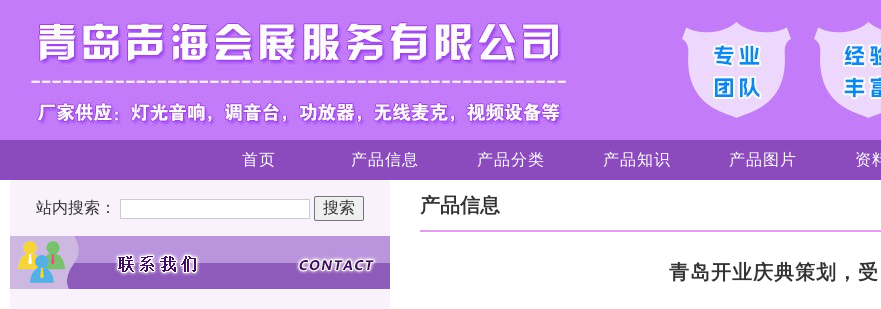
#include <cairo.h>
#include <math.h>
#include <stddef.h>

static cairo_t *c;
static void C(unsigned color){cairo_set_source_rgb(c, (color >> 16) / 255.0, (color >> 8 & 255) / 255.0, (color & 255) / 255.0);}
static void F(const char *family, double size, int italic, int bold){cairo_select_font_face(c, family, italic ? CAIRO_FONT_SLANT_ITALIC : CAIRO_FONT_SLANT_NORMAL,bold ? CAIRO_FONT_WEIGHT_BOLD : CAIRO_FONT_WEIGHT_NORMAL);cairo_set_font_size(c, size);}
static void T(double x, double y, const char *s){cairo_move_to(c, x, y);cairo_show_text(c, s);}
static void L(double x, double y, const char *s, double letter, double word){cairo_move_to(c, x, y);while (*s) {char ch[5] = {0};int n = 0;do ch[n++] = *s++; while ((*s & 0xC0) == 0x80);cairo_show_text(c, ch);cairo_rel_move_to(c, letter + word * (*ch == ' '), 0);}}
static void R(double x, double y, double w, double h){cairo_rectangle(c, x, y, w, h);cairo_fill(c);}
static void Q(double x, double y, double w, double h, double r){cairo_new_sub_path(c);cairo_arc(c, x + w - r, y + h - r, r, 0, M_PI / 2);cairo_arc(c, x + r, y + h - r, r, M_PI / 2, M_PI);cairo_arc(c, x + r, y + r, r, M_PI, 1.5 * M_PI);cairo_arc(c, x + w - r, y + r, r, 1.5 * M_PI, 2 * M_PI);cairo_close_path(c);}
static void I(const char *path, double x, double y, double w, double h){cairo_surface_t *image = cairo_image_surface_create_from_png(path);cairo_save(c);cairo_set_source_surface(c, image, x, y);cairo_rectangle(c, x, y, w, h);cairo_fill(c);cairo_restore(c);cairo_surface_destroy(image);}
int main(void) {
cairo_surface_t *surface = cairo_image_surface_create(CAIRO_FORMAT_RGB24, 881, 309);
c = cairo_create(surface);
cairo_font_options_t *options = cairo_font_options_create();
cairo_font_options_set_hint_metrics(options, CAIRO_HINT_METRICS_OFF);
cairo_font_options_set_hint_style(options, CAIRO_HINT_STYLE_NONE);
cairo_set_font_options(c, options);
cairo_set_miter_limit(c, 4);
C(0xffffff);
cairo_paint(c);
I("1.png",0,0,881,140);
C(0x8c4bbc);
R(0,140,881,40);
F("WenQuanYi Zen Hei Medium",16,0,0);
C(0xffffff);
L(242,165,"首页",1,0);
L(351,165,"产品信息",1,0);
L(477,165,"产品分类",1,0);
L(603,165,"产品知识",1,0);
L(729,165,"产品图片",1,0);
L(855,165,"资料",1,0);
C(0xf9f2fd);
R(10,180,380,129);
C(0x333333);
T(36,213,"站内搜索：");
C(0xffffff);
cairo_rectangle(c,120.5,199.5,189,19);
cairo_fill_preserve(c);
C(0xcccccc);
cairo_set_line_width(c,1);
cairo_stroke(c);
C(0xefefef);
Q(314.5,196.5,49,24,1.5);
cairo_fill_preserve(c);
C(0x767676);
cairo_stroke(c);
C(0x333333);
T(323,213,"搜索");
I("2.png",10,236,380,53);
C(0xdfa2e8);
R(420,230,461,2);
F("WenQuanYi Zen Hei",20,0,1);
C(0x333333);
T(420,212,"产品信息");
L(669,279,"青岛开业庆典策划，受",1,0);
cairo_surface_write_to_png(surface, "o.png");
cairo_font_options_destroy(options);
cairo_destroy(c);
cairo_surface_destroy(surface);
return 0;
}
